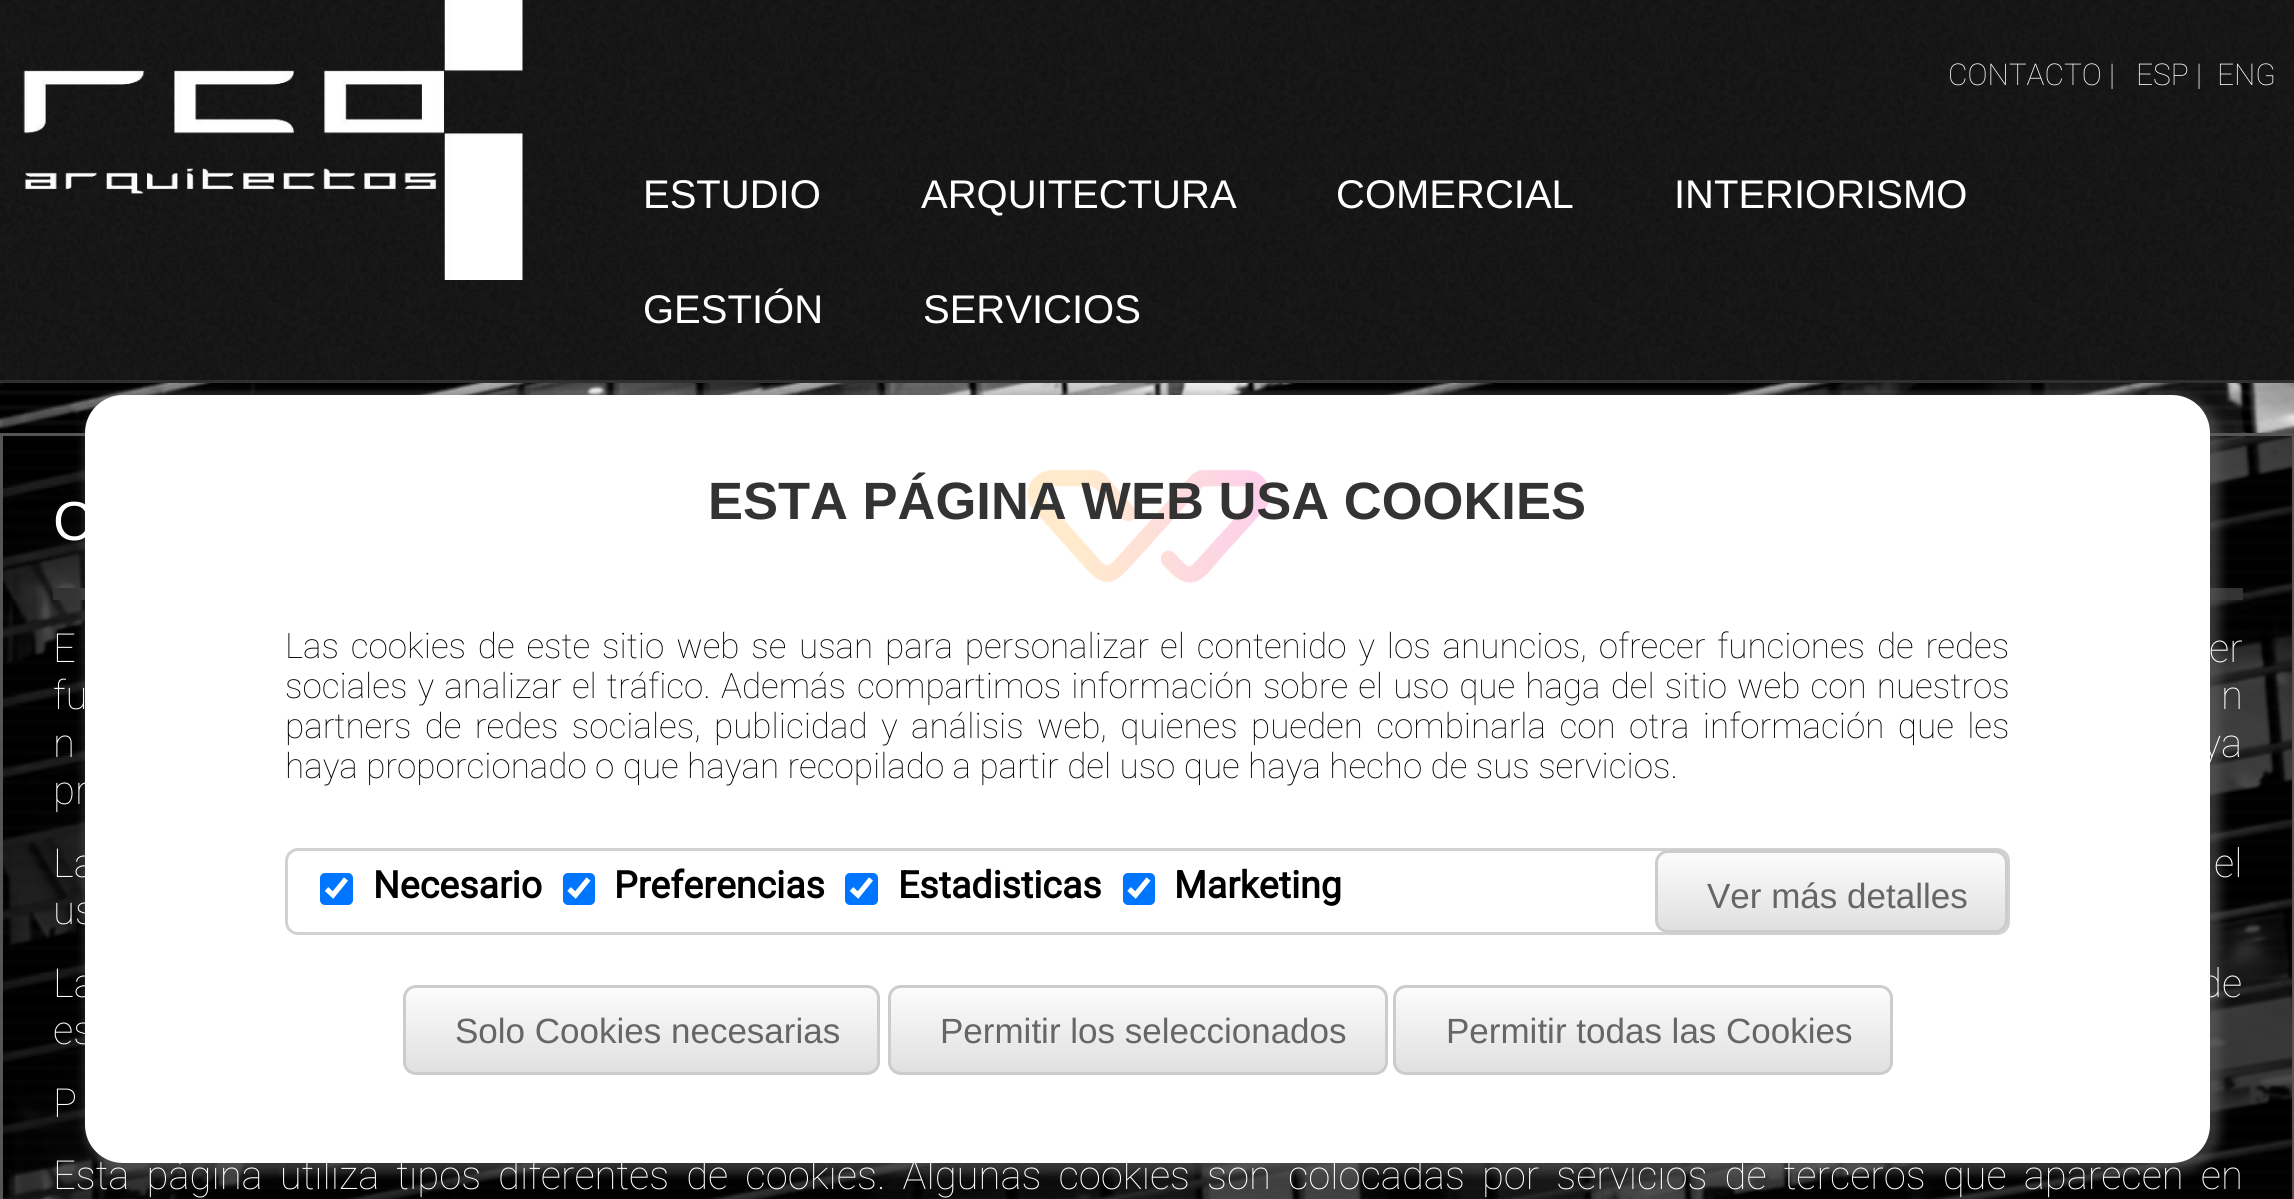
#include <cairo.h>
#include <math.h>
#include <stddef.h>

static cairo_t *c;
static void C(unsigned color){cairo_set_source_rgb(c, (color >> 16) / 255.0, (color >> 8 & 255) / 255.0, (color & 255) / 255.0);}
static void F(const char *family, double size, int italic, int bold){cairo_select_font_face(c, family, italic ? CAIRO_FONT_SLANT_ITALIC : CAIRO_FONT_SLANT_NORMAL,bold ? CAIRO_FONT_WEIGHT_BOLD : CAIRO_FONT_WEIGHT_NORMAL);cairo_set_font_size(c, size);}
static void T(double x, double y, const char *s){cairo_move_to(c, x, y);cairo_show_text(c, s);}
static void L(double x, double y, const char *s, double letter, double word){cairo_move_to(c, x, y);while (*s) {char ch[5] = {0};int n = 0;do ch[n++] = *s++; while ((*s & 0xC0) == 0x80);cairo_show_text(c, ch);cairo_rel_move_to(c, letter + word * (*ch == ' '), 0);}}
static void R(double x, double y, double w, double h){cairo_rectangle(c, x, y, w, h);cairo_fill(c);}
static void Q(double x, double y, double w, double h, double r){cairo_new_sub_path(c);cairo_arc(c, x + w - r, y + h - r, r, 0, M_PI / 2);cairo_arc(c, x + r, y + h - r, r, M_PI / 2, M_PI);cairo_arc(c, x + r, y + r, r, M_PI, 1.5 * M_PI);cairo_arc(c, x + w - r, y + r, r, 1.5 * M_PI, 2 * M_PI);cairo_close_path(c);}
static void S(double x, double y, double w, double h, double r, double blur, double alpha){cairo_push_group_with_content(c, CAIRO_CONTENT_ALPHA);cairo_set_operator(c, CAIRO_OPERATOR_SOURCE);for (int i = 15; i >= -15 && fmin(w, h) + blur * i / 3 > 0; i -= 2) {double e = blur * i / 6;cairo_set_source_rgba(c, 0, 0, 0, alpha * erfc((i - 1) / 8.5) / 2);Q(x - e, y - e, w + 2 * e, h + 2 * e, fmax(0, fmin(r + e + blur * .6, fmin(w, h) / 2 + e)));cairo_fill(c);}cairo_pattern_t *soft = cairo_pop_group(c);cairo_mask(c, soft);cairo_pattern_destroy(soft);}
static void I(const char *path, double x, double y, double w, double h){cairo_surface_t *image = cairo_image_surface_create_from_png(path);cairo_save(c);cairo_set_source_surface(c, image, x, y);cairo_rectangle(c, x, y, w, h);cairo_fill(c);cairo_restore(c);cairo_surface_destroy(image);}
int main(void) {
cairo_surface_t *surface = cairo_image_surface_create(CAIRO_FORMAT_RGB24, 2294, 1199);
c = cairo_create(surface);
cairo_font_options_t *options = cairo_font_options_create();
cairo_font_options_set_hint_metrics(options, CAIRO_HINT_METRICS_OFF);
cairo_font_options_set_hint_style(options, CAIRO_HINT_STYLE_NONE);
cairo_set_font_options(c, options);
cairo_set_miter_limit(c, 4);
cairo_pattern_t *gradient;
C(0xffffff);
cairo_paint(c);
I("1.png",0,383,2294,816);
I("2.png",0,0,2294,380);
C(0x2f2f2f);
R(0,380,2294,3);
I("3.png",23,0,500,280);
F("Roboto Thin",30,0,0);
C(0xffffff);
T(1948,85,"CONTACTO |");
T(2136,85,"ESP |");
T(2217,85,"ENG");
F("Arimo",40,0,0);
T(643,208,"ESTUDIO");
T(921,208,"ARQUITECTURA");
T(1336,208,"COMERCIAL");
T(1674,208,"INTERIORISMO");
T(643,323,"GESTIÓN");
T(923,323,"SERVICIOS");
I("4.png",0,390,2294,800);
cairo_set_source_rgba(c,0,0,0,0.7);
cairo_rectangle(c,1.5,434.5,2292,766);
cairo_fill_preserve(c);
C(0x555555);
cairo_set_line_width(c,3);
cairo_stroke(c);
C(0x333333);
R(53,588,2190,12);
C(0x666666);
S(85,395,2135,778,43,5,.5);
C(0xffffff);
Q(85,395,2125,768,38);
cairo_fill(c);
I("5.png",1027,469,243,114);
F("Arimo",52.5,0,1);
C(0x333333);
T(708,519,"ESTA PÁGINA WEB USA COOKIES");
F("Roboto Thin",35,0,0);
C(0x000000);
L(285,658,"Las cookies de este sitio web se",0,3.5);
L(799,658,"usan para personalizar",0,3.5);
L(1160,658,"el contenido y los anuncios, ofrecer funciones de redes",0,3.5);
L(285,698,"sociales y analizar el tráfico. Además",0,1.75);
L(857,698,"compartimos información sobre el uso que haga del sitio web con nuestros",0,1.75);
L(285,738,"partners de redes sociales,",0,5);
L(714,738,"publicidad y análisis web, quienes pueden combinarla con otra información que les",0,5);
T(285,778,"haya proporcionado o que hayan recopilado a partir del uso que haya hecho de sus servicios.");
Q(286.5,849.5,1722,84,11.5);
C(0xd1d1d1);
cairo_stroke(c);
C(0x0075ff);
Q(320,873,33,32,5);
cairo_fill(c);
cairo_new_path(c);
cairo_move_to(c,326.5,889);
cairo_line_to(c,333,895);
cairo_line_to(c,346,879);
C(0xffffff);
cairo_set_line_width(c,5.2);
cairo_stroke(c);
F("Roboto",37.5,0,1);
C(0x000000);
T(373,898,"Necesario");
C(0x0075ff);
Q(563,873,32,32,5);
cairo_fill(c);
cairo_new_path(c);
cairo_move_to(c,569,889);
cairo_line_to(c,575.5,895);
cairo_line_to(c,588.5,879);
C(0xffffff);
cairo_stroke(c);
C(0x000000);
T(614,898,"Preferencias");
C(0x0075ff);
Q(845,873,33,32,5);
cairo_fill(c);
cairo_new_path(c);
cairo_move_to(c,851.5,889);
cairo_line_to(c,858,895);
cairo_line_to(c,871,879);
C(0xffffff);
cairo_stroke(c);
C(0x000000);
T(898,898,"Estadisticas");
C(0x0075ff);
Q(1123,873,32,32,5);
cairo_fill(c);
cairo_new_path(c);
cairo_move_to(c,1129,889);
cairo_line_to(c,1135.5,895);
cairo_line_to(c,1148.5,879);
C(0xffffff);
cairo_stroke(c);
C(0x000000);
T(1174,898,"Marketing");
cairo_save(c);
Q(1655,850,353,83,13);
cairo_clip(c);
gradient = cairo_pattern_create_linear(1831,853,1831,930);
cairo_pattern_add_color_stop_rgba(gradient,0,0.988,0.988,0.988,1);
cairo_pattern_add_color_stop_rgba(gradient,1,0.878,0.878,0.878,1);
cairo_set_source(c,gradient);
cairo_pattern_destroy(gradient);
R(1655,853,353,77);
cairo_restore(c);
Q(1656.5,851.5,350,80,11.5);
C(0xcccccc);
cairo_set_line_width(c,3);
cairo_stroke(c);
F("Arimo",35,0,0);
C(0x666666);
T(1707,908,"Ver más detalles");
cairo_save(c);
Q(403,985,477,90,13);
cairo_clip(c);
gradient = cairo_pattern_create_linear(641,988,641,1073);
cairo_pattern_add_color_stop_rgba(gradient,0,0.988,0.988,0.988,1);
cairo_pattern_add_color_stop_rgba(gradient,1,0.878,0.878,0.878,1);
cairo_set_source(c,gradient);
cairo_pattern_destroy(gradient);
R(403,988,477,85);
cairo_restore(c);
Q(404.5,986.5,474,87,11.5);
C(0xcccccc);
cairo_stroke(c);
C(0x666666);
T(455,1043,"Solo Cookies necesarias");
cairo_save(c);
Q(888,985,500,90,13);
cairo_clip(c);
gradient = cairo_pattern_create_linear(1138,988,1138,1073);
cairo_pattern_add_color_stop_rgba(gradient,0,0.988,0.988,0.988,1);
cairo_pattern_add_color_stop_rgba(gradient,1,0.878,0.878,0.878,1);
cairo_set_source(c,gradient);
cairo_pattern_destroy(gradient);
R(888,988,500,85);
cairo_restore(c);
Q(889.5,986.5,497,87,11.5);
C(0xcccccc);
cairo_stroke(c);
C(0x666666);
T(940,1043,"Permitir los seleccionados");
cairo_save(c);
Q(1393,985,500,90,13);
cairo_clip(c);
gradient = cairo_pattern_create_linear(1643,988,1643,1073);
cairo_pattern_add_color_stop_rgba(gradient,0,0.988,0.988,0.988,1);
cairo_pattern_add_color_stop_rgba(gradient,1,0.878,0.878,0.878,1);
cairo_set_source(c,gradient);
cairo_pattern_destroy(gradient);
R(1393,988,500,85);
cairo_restore(c);
Q(1394.5,986.5,497,87,11.5);
C(0xcccccc);
cairo_stroke(c);
C(0x666666);
T(1446,1043,"Permitir todas las Cookies");
F("Arimo",55,0,0);
C(0xffffff);
T(53,540,"C");
F("Roboto Thin",40,0,0);
L(53,662,"E",0,6);
L(2209,662,"er",0,6);
L(53,709,"fu",0,4);
L(2221,709,"n",0,4);
L(53,757,"n",0,3);
L(2202,757,"ya",0,3);
T(53,804,"pr");
L(53,877,"La",0,4);
L(2214,877,"el",0,4);
T(53,924,"us");
L(53,997,"La",0,5);
L(2200,997,"de",0,5);
T(53,1044,"es");
T(53,1117,"P");
L(53,1189,"Esta página utiliza tipos diferentes de cookies. Algunas cookies son colocadas por servicios de terceros que aparecen en",0,7.5);
cairo_surface_write_to_png(surface, "o.png");
cairo_font_options_destroy(options);
cairo_destroy(c);
cairo_surface_destroy(surface);
return 0;
}
